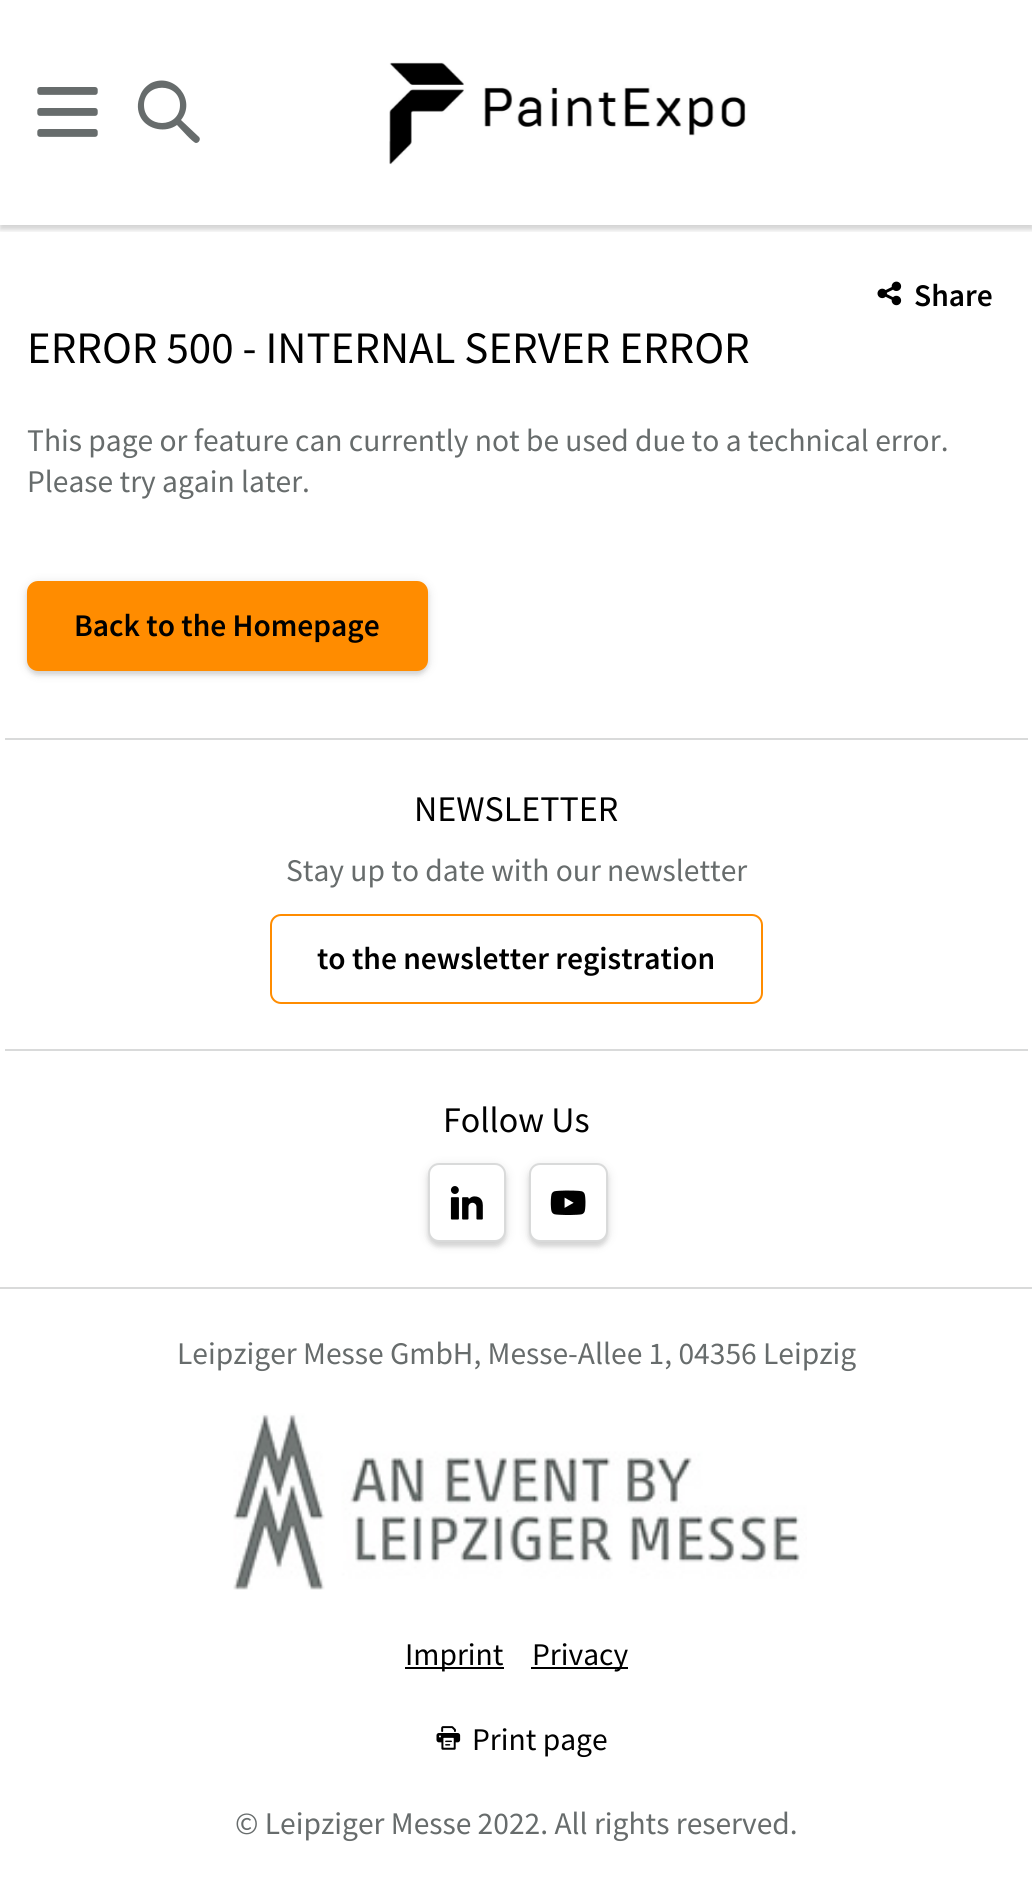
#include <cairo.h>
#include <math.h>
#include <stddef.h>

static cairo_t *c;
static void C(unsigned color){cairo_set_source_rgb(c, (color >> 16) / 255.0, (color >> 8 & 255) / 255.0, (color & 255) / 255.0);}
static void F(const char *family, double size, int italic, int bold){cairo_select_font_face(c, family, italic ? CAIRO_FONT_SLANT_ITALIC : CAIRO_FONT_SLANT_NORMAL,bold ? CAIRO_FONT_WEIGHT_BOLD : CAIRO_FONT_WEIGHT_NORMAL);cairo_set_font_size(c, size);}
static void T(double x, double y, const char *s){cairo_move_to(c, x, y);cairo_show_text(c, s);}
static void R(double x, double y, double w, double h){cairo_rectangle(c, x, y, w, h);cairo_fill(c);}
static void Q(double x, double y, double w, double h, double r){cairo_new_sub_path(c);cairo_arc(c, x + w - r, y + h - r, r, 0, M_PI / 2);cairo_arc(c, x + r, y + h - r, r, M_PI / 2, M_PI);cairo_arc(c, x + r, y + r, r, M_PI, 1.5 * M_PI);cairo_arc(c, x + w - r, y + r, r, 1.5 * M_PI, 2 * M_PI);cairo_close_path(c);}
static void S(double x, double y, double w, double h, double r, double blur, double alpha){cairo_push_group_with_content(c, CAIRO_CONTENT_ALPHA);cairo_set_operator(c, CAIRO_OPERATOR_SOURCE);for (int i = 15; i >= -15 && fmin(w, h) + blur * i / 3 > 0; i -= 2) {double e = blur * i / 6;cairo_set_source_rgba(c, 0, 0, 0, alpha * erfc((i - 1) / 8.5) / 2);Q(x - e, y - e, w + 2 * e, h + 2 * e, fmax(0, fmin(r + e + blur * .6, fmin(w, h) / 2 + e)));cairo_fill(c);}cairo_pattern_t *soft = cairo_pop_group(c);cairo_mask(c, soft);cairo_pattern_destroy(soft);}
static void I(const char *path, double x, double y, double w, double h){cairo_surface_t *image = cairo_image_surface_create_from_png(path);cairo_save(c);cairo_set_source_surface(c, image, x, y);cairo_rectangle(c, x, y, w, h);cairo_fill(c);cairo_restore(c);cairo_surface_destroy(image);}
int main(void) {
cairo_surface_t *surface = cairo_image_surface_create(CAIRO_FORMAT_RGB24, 1032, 1888);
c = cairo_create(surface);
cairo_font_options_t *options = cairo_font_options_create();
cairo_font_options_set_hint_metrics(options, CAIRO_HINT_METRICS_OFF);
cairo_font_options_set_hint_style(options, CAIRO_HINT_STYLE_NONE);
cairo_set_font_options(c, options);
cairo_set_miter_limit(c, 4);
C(0xffffff);
cairo_paint(c);
cairo_save(c);
cairo_rectangle(c,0,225,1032,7);
cairo_clip(c);
C(0x000000);
S(0,2,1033,225,0,5.5,.12);
S(0,5,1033,225,0,2,.1);
cairo_restore(c);
I("1.png",37,87,61,50);
C(0x676c6c);
cairo_new_path(c);
cairo_move_to(c,199,137);
cairo_line_to(c,181,120);
cairo_curve_to(c,197,100,174,72,151,83);
cairo_curve_to(c,146,86,142,90,140,96);
cairo_curve_to(c,137,103,137,111,141,118);
cairo_curve_to(c,148,130,166,133,177,125);
cairo_curve_to(c,180,128,193,143,196,143);
cairo_curve_to(c,199,143,201,139,199,137);
cairo_close_path(c);
cairo_move_to(c,144,105);
cairo_curve_to(c,144,82,180,82,180,105);
cairo_curve_to(c,180,129,144,129,144,105);
cairo_close_path(c);
cairo_fill(c);
I("2.png",389,62,357,103);
I("3.png",877,281,25,25);
F("Source Sans Pro SemiBold",31.5,0,0);
C(0x000000);
T(914,306,"Share");
F("Source Sans Pro",45,0,0);
T(27,363,"ERROR 500 - INTERNAL SERVER ERROR");
F("Source Sans Pro",31.5,0,0);
C(0x676c6c);
T(27,451,"This page or feature can currently not be used due to a technical error.");
T(27,492,"Please try again later.");
C(0x000000);
S(27,583,401,90,11,5.5,.12);
S(27,585,401,90,11,2,.1);
C(0xff8c00);
Q(28,582,399,88,10);
cairo_fill_preserve(c);
cairo_stroke(c);
F("Source Sans Pro SemiBold",31.5,0,0);
C(0x000000);
T(74,636,"Back to the Homepage");
C(0xd9dada);
R(5,738,1023,2);
F("Source Sans Pro",36,0,0);
C(0x000000);
T(414,821,"NEWSLETTER");
F("Source Sans Pro",31.5,0,0);
C(0x676c6c);
T(286,881,"Stay up to date with our newsletter");
Q(271,915,491,88,10);
C(0xff8c00);
cairo_stroke(c);
F("Source Sans Pro SemiBold",31.5,0,0);
C(0x000000);
T(317,969,"to the newsletter registration");
C(0xd9dada);
R(5,1049,1023,2);
F("Source Sans Pro",36,0,0);
C(0x000000);
T(443,1132,"Follow Us");
C(0x000000);
S(428,1166,78,78,11,5.5,.12);
S(428,1168,78,79,11,2,.1);
C(0xffffff);
Q(429,1164,76,77,10);
cairo_fill_preserve(c);
C(0xd9dada);
cairo_stroke(c);
I("4.png",450,1186,33,34);
C(0x000000);
S(529,1166,79,78,11,5.5,.12);
S(529,1168,79,79,11,2,.1);
C(0xffffff);
Q(530,1164,77,77,10);
cairo_fill_preserve(c);
C(0xd9dada);
cairo_stroke(c);
I("5.png",550,1190,36,25);
R(0,1287,1032,2);
F("Source Sans Pro",31.5,0,0);
C(0x676c6c);
T(177,1364,"Leipziger Messe GmbH, Messe-Allee 1, 04356 Leipzig");
I("6.png",233,1413,574,177);
C(0x000000);
R(405,1667,99,2);
T(405,1665,"Imprint");
R(531,1667,97,2);
T(532,1665,"Privacy");
I("7.png",436,1726,25,24);
T(472,1750,"Print page");
C(0x676c6c);
T(235,1834,"© Leipziger Messe 2022. All rights reserved.");
cairo_surface_write_to_png(surface, "o.png");
cairo_font_options_destroy(options);
cairo_destroy(c);
cairo_surface_destroy(surface);
return 0;
}
